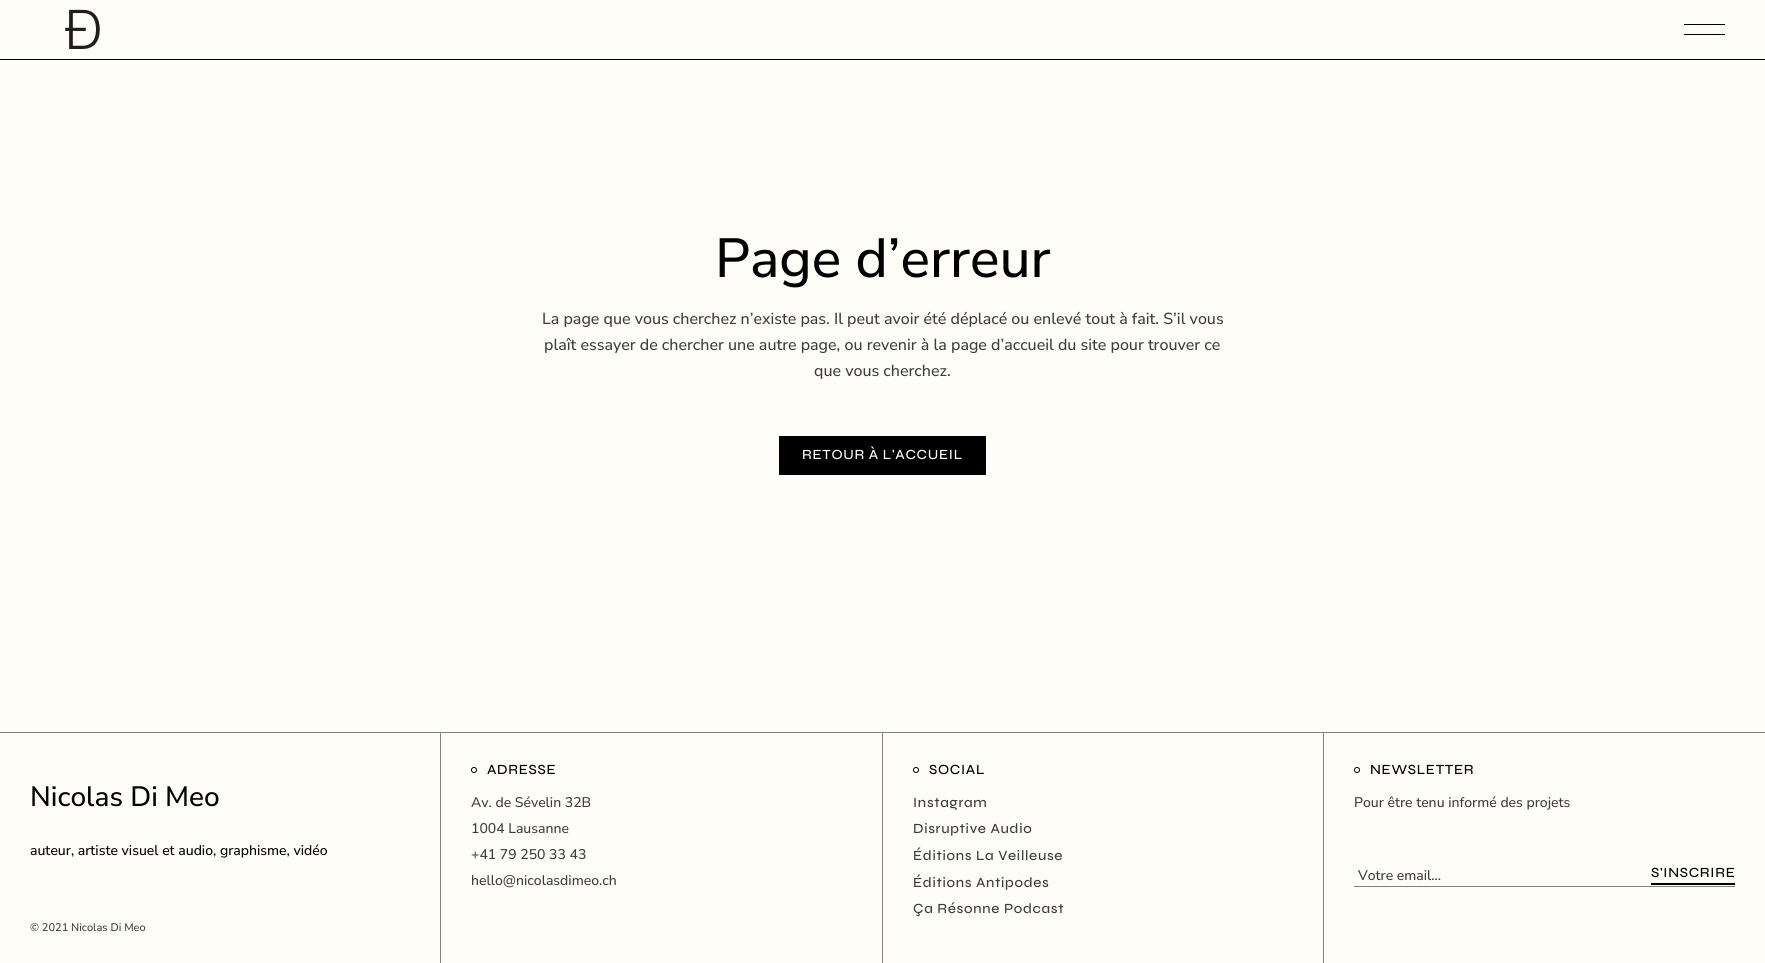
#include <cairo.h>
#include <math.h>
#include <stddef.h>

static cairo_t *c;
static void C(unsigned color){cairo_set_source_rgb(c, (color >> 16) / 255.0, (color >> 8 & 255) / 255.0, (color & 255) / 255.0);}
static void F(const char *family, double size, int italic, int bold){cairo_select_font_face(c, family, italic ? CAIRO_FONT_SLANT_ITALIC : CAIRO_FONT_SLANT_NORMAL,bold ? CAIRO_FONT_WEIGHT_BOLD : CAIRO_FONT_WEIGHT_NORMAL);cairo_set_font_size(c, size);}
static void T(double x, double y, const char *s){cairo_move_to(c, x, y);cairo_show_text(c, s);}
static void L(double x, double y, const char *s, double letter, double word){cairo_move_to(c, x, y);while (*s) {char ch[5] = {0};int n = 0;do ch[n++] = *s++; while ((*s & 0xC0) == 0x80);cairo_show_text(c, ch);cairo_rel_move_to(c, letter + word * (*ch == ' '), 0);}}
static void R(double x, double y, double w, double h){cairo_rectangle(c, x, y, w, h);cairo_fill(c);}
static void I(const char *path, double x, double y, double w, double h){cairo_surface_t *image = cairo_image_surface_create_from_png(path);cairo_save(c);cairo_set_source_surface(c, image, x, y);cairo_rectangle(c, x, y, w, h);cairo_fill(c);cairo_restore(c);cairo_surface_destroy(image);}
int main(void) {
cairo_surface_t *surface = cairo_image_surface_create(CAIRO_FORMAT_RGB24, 1765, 963);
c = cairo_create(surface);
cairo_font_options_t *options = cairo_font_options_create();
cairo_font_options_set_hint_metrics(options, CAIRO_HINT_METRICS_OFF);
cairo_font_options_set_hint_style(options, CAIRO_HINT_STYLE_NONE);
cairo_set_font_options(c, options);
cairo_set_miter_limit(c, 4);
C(0xfffdf7);
cairo_paint(c);
C(0x000000);
R(0,59,1765,1);
I("1.png",65,9,35,40);
R(1684,24,41,1);
R(1684,34,41,1);
F("Nunito Sans Medium",55,0,0);
T(715,277,"Page d’erreur");
F("Nunito Sans Medium",16,0,0);
C(0x3d3d3d);
T(542,324,"La page que vous cherchez n’existe pas. Il peut avoir été déplacé ou enlevé tout à fait. S’il vous");
T(544,350,"plaît essayer de chercher une autre page, ou revenir à la page d’accueil du site pour trouver ce");
T(814,376,"que vous cherchez.");
C(0x000000);
R(779,436,207,39);
F("Syne Medium",14,0,0);
C(0xffffff);
L(802,459,"RETOUR À L'ACCUEIL",.7,0);
C(0x7f8678);
R(0,732,1765,1);
R(440,733,1,230);
F("Nunito Sans Medium",28,0,0);
C(0x000000);
T(30,806,"Nicolas Di Meo");
F("Nunito Sans Medium",14,0,0);
T(30,855,"auteur, artiste visuel et audio, graphisme, vidéo");
F("Nunito Sans Medium",11,0,0);
C(0x3d3d3d);
T(30,931,"© 2021 Nicolas Di Meo");
C(0x7f8678);
R(882,733,1,230);
cairo_new_path(c);
cairo_arc(c,474,770,2.5,0,2 * M_PI);
C(0x000000);
cairo_set_line_width(c,1);
cairo_stroke(c);
F("Syne Medium",14,0,0);
L(487,774,"ADRESSE",.7,0);
F("Nunito Sans Medium",14,0,0);
C(0x3d3d3d);
T(471,807,"Av. de Sévelin 32B");
T(471,833,"1004 Lausanne");
T(471,859,"+41 79 250 33 43");
T(471,885,"hello@nicolasdimeo.ch");
C(0x7f8678);
R(1323,733,1,230);
cairo_new_path(c);
cairo_arc(c,916,770,2.5,0,2 * M_PI);
C(0x000000);
cairo_stroke(c);
F("Syne Medium",14,0,0);
L(929,774,"SOCIAL",.7,0);
C(0x3d3d3d);
L(913,807,"Instagram",.7,0);
L(913,833,"Disruptive Audio",.7,0);
L(913,860,"Éditions La Veilleuse",.7,0);
L(913,887,"Éditions Antipodes",.7,0);
L(913,913,"Ça Résonne Podcast",.7,0);
cairo_new_path(c);
cairo_arc(c,1357,770,2.5,0,2 * M_PI);
C(0x000000);
cairo_stroke(c);
L(1370,774,"NEWSLETTER",.7,0);
F("Nunito Sans Medium",14,0,0);
C(0x3d3d3d);
T(1354,807,"Pour être tenu informé des projets");
C(0x7f8678);
R(1354,886,381,1);
C(0x3d3d3d);
T(1358,880,"Votre email...");
F("Syne Medium",14,0,0);
C(0x000000);
L(1651,877,"S'INSCRIRE",.7,0);
R(1651,883,84,2);
cairo_surface_write_to_png(surface, "o.png");
cairo_font_options_destroy(options);
cairo_destroy(c);
cairo_surface_destroy(surface);
return 0;
}
